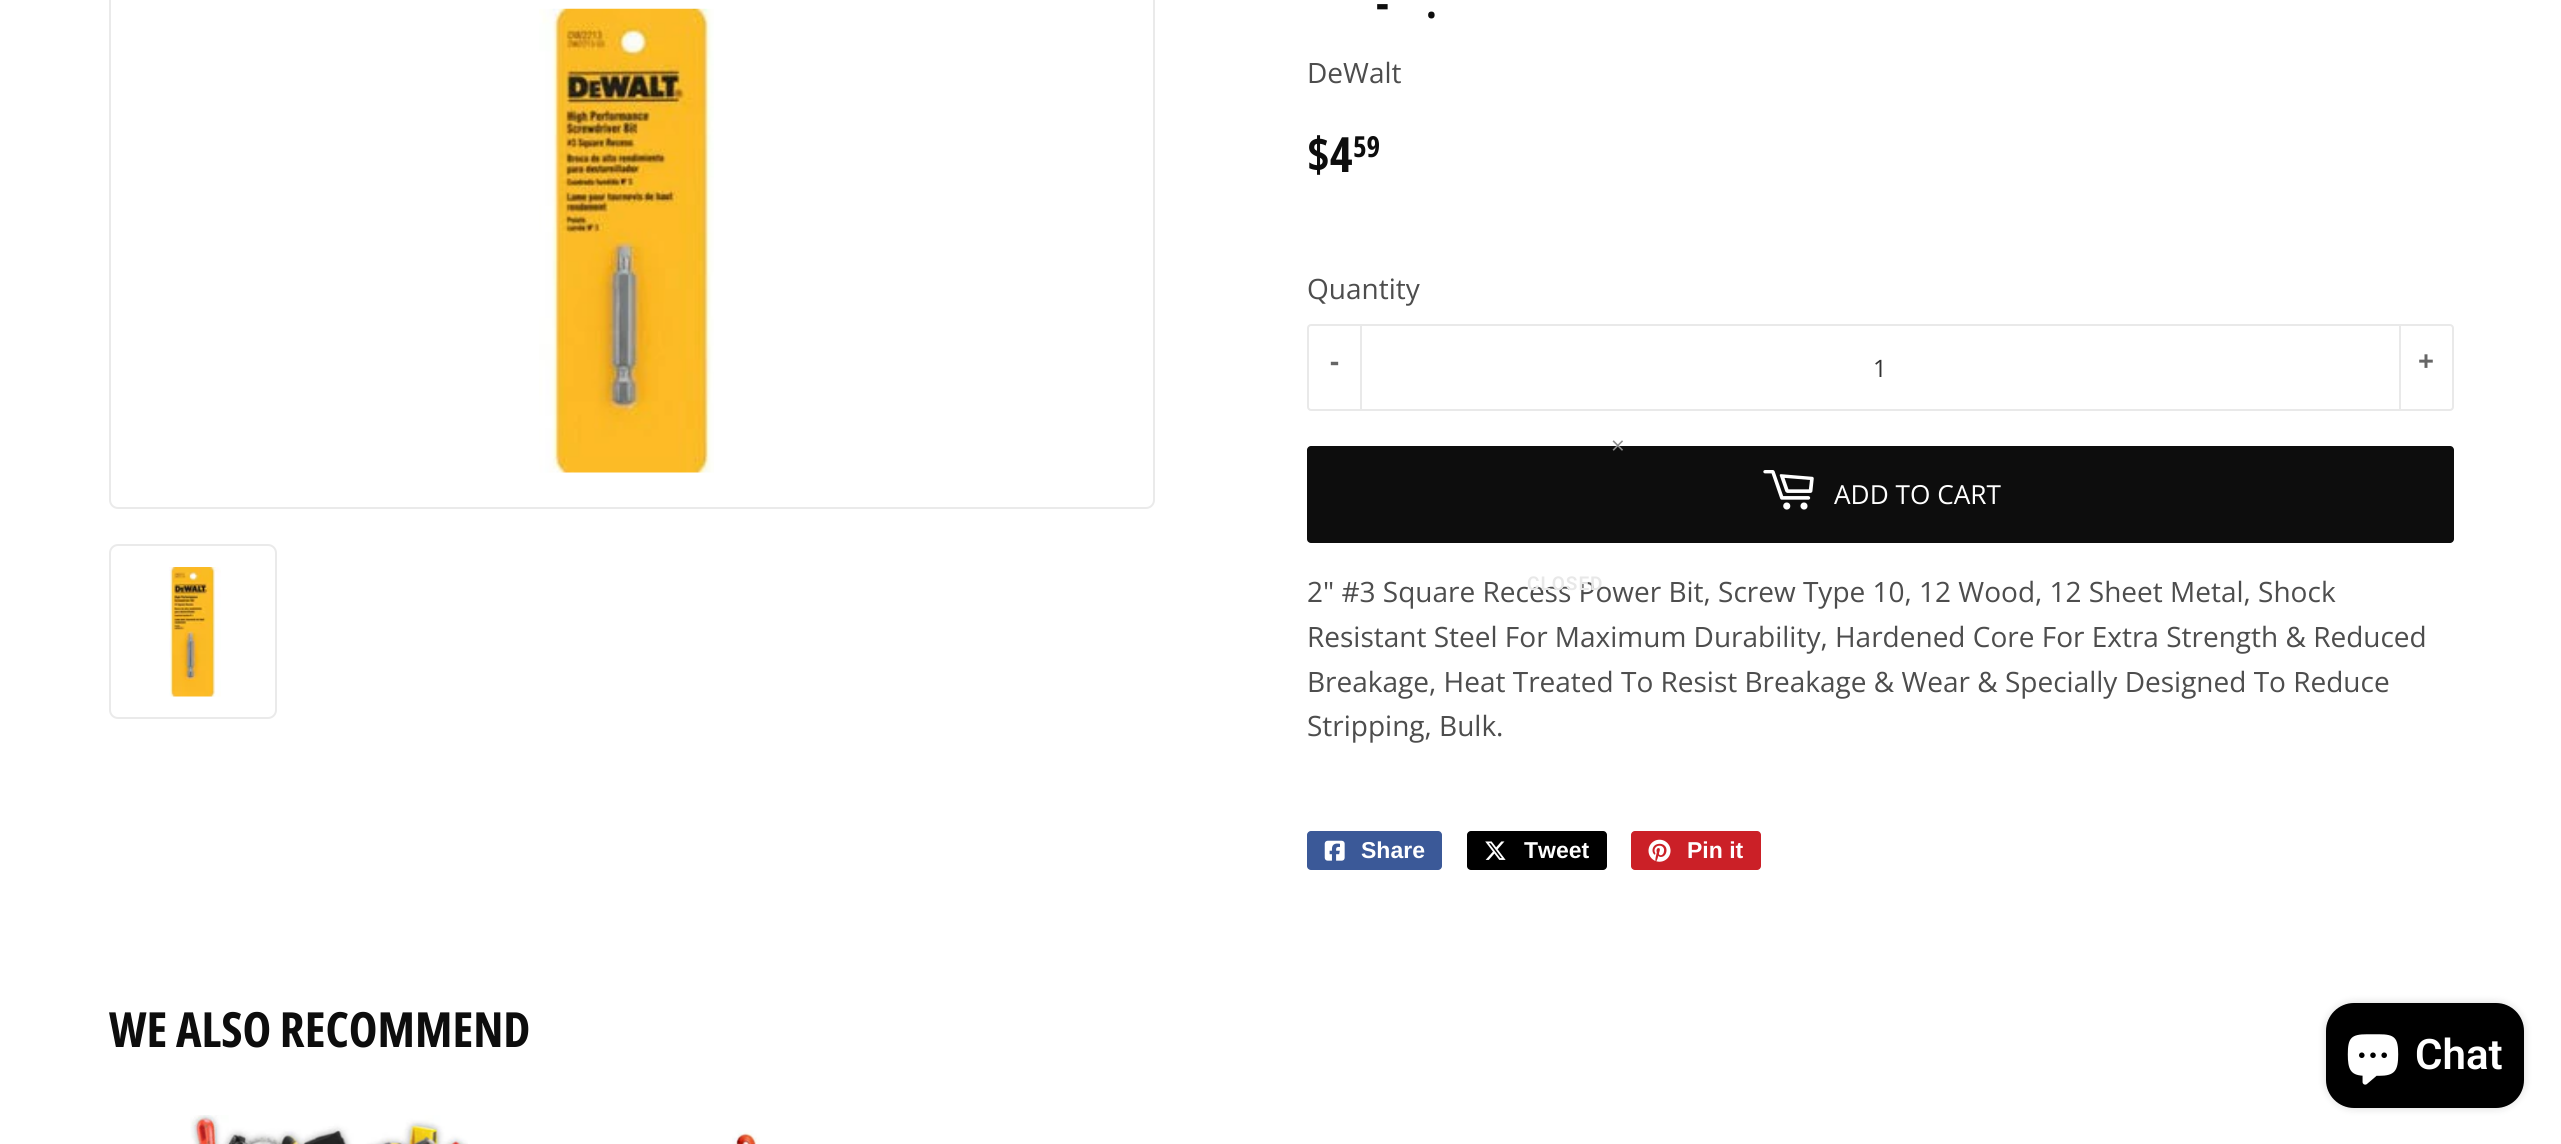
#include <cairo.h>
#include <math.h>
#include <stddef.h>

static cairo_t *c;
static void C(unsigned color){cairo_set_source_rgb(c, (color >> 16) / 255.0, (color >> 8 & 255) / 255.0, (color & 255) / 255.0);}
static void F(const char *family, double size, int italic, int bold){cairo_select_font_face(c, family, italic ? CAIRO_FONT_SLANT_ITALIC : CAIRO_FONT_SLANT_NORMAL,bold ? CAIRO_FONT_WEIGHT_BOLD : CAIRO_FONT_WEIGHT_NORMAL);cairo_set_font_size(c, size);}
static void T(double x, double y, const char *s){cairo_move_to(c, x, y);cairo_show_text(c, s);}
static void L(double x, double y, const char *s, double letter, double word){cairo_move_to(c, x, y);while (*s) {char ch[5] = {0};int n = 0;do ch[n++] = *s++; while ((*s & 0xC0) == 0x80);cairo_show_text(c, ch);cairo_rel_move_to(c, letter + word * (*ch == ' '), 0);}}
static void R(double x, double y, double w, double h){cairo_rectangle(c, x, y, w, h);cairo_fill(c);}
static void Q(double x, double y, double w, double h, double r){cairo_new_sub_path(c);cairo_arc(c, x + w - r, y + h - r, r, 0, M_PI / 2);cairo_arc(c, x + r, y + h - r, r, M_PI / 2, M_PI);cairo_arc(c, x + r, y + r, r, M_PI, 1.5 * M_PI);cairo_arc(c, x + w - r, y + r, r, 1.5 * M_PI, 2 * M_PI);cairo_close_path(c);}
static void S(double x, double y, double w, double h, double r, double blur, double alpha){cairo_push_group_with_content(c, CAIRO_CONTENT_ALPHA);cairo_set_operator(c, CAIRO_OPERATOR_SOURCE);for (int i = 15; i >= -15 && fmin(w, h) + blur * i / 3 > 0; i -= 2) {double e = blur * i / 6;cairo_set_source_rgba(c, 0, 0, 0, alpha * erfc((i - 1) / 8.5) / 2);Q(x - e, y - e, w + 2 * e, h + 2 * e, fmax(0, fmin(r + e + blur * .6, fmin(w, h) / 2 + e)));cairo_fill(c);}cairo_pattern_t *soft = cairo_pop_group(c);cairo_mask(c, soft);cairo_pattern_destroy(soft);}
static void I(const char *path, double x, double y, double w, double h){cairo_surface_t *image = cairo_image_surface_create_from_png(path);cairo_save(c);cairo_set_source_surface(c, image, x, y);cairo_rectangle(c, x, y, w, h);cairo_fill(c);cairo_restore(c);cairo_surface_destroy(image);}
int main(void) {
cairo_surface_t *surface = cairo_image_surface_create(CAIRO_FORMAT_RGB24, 2561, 1144);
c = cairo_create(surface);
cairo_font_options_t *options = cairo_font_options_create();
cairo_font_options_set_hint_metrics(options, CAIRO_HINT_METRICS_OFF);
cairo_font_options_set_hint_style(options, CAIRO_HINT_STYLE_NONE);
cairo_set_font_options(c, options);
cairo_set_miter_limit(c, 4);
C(0xffffff);
cairo_paint(c);
Q(110,-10,1044,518,8);
C(0xeaeaea);
cairo_stroke(c);
I("1.png",539,8,175,465);
Q(110,545,166,173,8);
cairo_stroke(c);
I("2.png",169,567,52,130);
F("Open Sans Condensed",42,0,1);
C(0x0d0d0d);
T(1376,18,"-");
T(1426,18,".");
F("Open Sans",28,0,0);
C(0x4d4d4d);
T(1307,83,"DeWalt");
F("Open Sans Condensed",48.5,0,1);
C(0x0d0d0d);
T(1307,172,"$4");
F("Open Sans Condensed",29,0,1);
T(1353,157,"59");
F("Open Sans",28,0,0);
C(0x4d4d4d);
T(1307,299,"Quantity");
Q(1308,325,1145,85,3);
C(0xe9e9e9);
cairo_stroke(c);
R(1360,326,2,84);
F("Open Sans",28,0,1);
C(0x666666);
T(1330,371,"-");
F("Open Sans",24,0,0);
C(0x333333);
T(1873,377,"1");
C(0xe9e9e9);
R(2399,326,2,84);
F("Open Sans",28,0,1);
C(0x666666);
T(2418,371,"+");
C(0x0d0d0d);
Q(1307,446,1147,97,4);
cairo_fill(c);
I("3.png",1763,470,51,40);
F("Open Sans",26.25,0,0);
C(0xffffff);
T(1834,504,"ADD TO CART");
F("Open Sans",28,0,0);
C(0x4d4d4d);
T(1307,602,"2\" #3 Square Recess Power Bit, Screw Type 10, 12 Wood, 12 Sheet Metal, Shock");
T(1307,647,"Resistant Steel For Maximum Durability, Hardened Core For Extra Strength & Reduced");
T(1307,692,"Breakage, Heat Treated To Resist Breakage & Wear & Specially Designed To Reduce");
T(1307,736,"Stripping, Bulk.");
C(0x3b5998);
Q(1307,831,135,39,4);
cairo_fill(c);
I("4.png",1324,840,21,21);
F("Liberation Sans",23,0,1);
C(0xffffff);
T(1361,858,"Share");
C(0x000000);
Q(1467,831,140,39,4);
cairo_fill(c);
I("5.png",1485,841,21,19);
C(0xffffff);
T(1524,858,"Tweet");
C(0xcb2027);
Q(1631,831,130,39,4);
cairo_fill(c);
I("6.png",1648,839,23,23);
C(0xffffff);
T(1687,858,"Pin it");
F("Open Sans Condensed",48.5,0,1);
C(0x0d0d0d);
T(109,1047,"WE ALSO RECOMMEND");
I("7.png",190,1115,278,29);
I("8.png",732,1130,28,14);
F("Open Sans",24,0,0);
C(0x8d8d8d);
T(1611,454,"×");
F("Roboto SemiBold",19,0,0);
C(0xe8e8e8);
L(1527,590,"CLOSED",1,0);
C(0x000000);
S(2326,1003,198,105,28,4.5,.15);
C(0x000000);
Q(2326,1003,198,105,28);
cairo_fill(c);
I("9.png",2347,1034,52,51);
F("Roboto SemiBold",42,0,0);
C(0xffffff);
T(2415,1069,"Chat");
cairo_surface_write_to_png(surface, "o.png");
cairo_font_options_destroy(options);
cairo_destroy(c);
cairo_surface_destroy(surface);
return 0;
}
